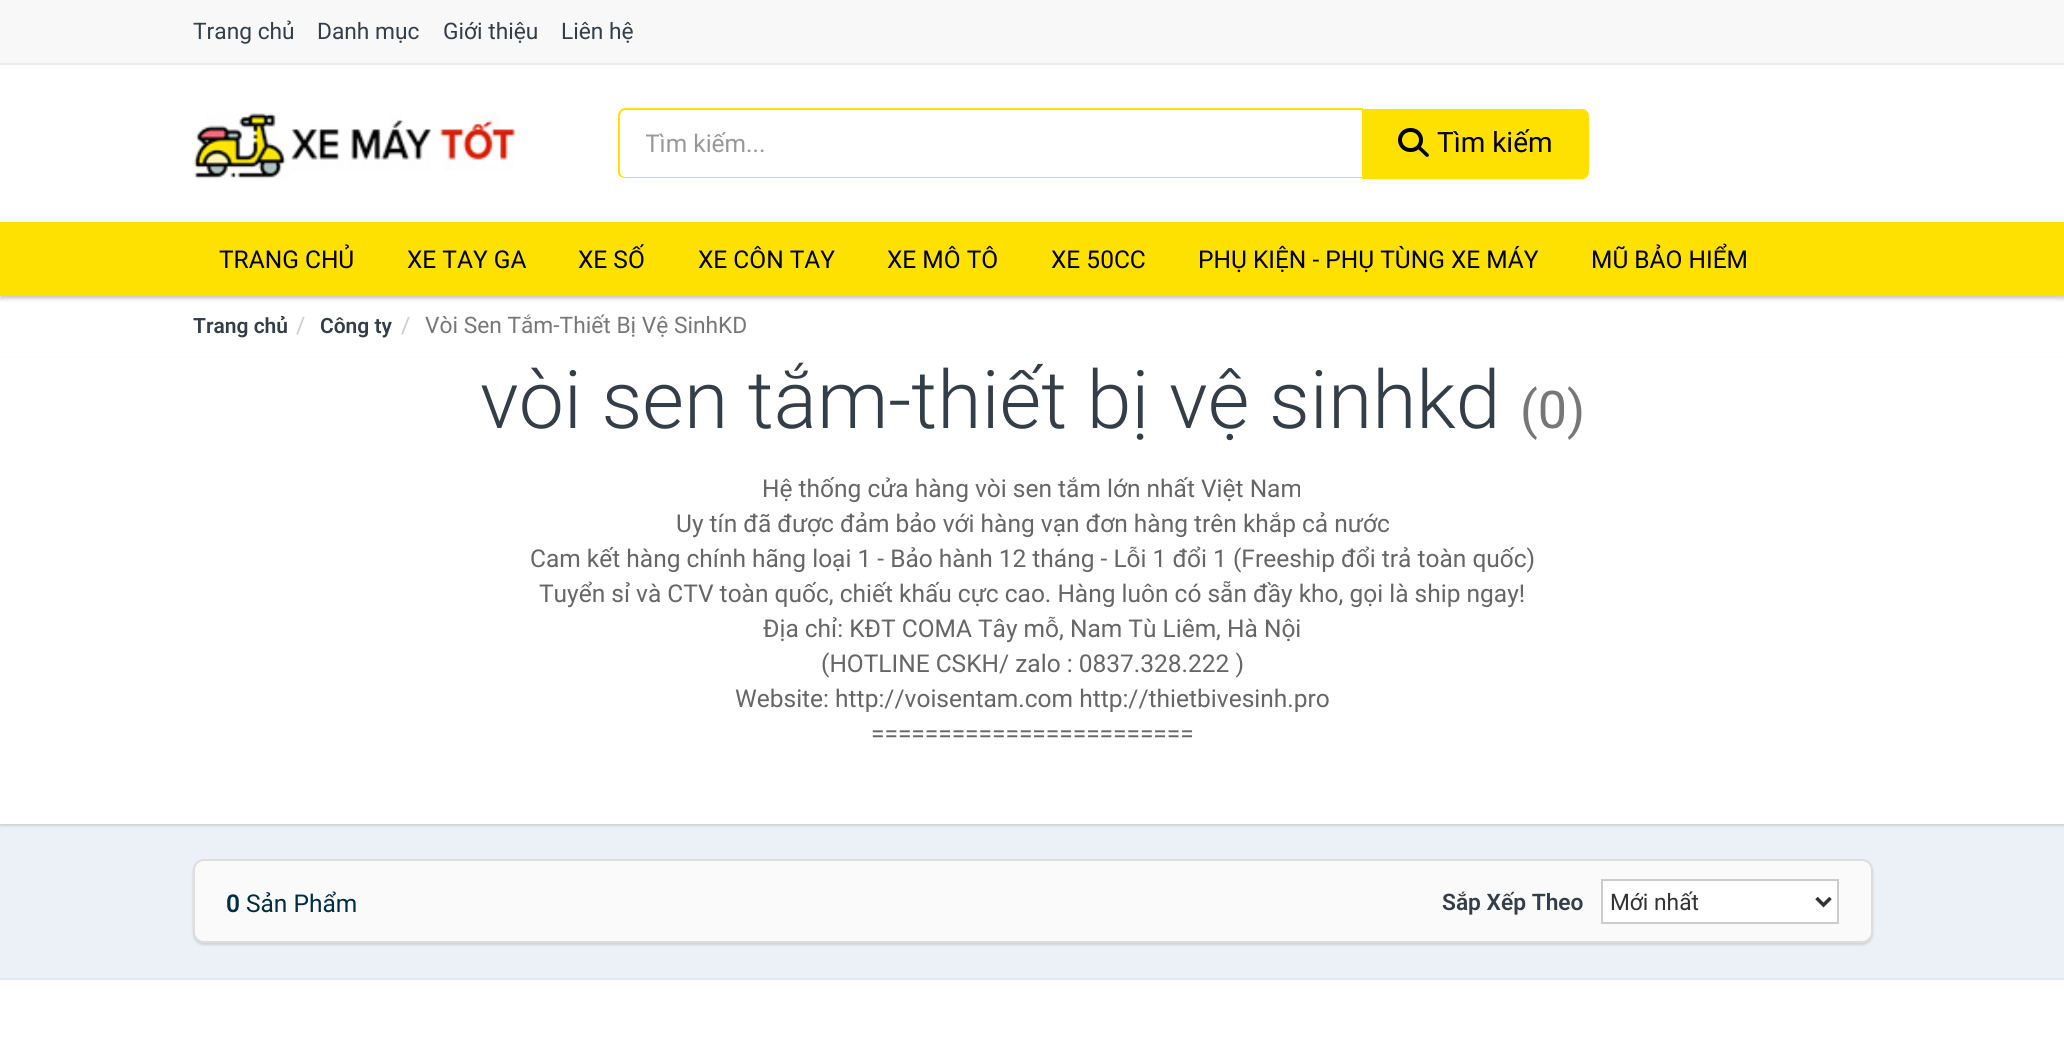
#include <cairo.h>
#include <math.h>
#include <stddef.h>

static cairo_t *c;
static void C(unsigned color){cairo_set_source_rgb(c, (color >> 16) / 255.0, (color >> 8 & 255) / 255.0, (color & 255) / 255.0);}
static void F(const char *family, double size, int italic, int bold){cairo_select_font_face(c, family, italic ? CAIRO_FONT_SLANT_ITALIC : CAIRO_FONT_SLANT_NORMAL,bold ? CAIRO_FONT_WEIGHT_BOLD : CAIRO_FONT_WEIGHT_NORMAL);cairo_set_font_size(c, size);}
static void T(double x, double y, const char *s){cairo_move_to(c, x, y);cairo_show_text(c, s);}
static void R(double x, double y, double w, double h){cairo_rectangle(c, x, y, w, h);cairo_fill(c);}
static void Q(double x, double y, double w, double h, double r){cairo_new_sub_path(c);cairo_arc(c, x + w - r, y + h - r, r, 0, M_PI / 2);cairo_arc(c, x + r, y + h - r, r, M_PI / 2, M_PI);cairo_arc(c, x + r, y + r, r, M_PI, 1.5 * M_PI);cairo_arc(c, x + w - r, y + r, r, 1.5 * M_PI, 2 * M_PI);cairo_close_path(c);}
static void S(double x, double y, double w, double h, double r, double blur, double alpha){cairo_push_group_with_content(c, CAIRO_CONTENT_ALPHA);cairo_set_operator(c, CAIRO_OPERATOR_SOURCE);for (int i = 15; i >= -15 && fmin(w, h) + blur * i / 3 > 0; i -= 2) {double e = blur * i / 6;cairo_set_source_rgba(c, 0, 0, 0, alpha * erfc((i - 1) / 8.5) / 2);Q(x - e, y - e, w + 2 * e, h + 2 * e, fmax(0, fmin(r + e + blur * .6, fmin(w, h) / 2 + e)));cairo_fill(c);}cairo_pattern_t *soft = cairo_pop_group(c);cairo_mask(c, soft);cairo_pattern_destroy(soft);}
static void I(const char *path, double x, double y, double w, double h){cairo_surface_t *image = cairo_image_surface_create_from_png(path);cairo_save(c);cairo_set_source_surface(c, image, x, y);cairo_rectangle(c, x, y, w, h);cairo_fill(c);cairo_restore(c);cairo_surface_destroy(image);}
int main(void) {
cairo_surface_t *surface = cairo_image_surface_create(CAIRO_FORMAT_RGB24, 2064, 1046);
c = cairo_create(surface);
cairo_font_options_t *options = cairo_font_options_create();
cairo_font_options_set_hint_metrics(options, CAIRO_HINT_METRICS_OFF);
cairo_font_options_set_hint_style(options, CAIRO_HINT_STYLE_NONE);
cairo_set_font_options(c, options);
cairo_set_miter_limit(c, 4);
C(0xffffff);
cairo_paint(c);
C(0xf8f8f8);
R(0,0,2064,63);
C(0xebebeb);
R(0,63,2064,2);
F("Roboto",22.75,0,0);
C(0x333e48);
T(193,39,"Trang chủ");
T(317,39,"Danh mục");
T(443,39,"Giới thiệu");
T(561,39,"Liên hệ");
I("1.png",192,113,323,67);
C(0xffe100);
cairo_set_fill_rule(c,CAIRO_FILL_RULE_EVEN_ODD);
cairo_new_path(c);
cairo_move_to(c,625,108);
cairo_line_to(c,1363,108);
cairo_line_to(c,1363,178);
cairo_line_to(c,625,178);
cairo_curve_to(c,621,178,618,175,618,172);
cairo_line_to(c,618,116);
cairo_curve_to(c,618,112,621,108,625,108);
cairo_close_path(c);
cairo_move_to(c,625,110);
cairo_line_to(c,1363,110);
cairo_line_to(c,1363,177);
cairo_line_to(c,625,177);
cairo_curve_to(c,622,177,620,174,620,172);
cairo_line_to(c,620,116);
cairo_curve_to(c,620,113,622,110,625,110);
cairo_close_path(c);
cairo_fill(c);
cairo_save(c);
cairo_set_fill_rule(c,CAIRO_FILL_RULE_WINDING);
cairo_rectangle(c,646,130,691,28);
cairo_clip(c);
F("Roboto",24.5,0,0);
C(0x999999);
T(645,152,"Tìm kiếm...");
cairo_restore(c);
cairo_new_path(c);
cairo_move_to(c,1362,109);
cairo_line_to(c,1582,109);
cairo_curve_to(c,1586,109,1589,112,1589,116);
cairo_line_to(c,1589,172);
cairo_curve_to(c,1589,176,1586,179,1582,179);
cairo_line_to(c,1362,179);
cairo_close_path(c);
cairo_fill(c);
Q(1400,130,21,20,10);
C(0x000000);
cairo_set_line_width(c,4);
cairo_stroke(c);
cairo_set_fill_rule(c,CAIRO_FILL_RULE_WINDING);
cairo_new_path(c);
cairo_move_to(c,1419.5,145.5);
cairo_line_to(c,1428.5,154);
cairo_curve_to(c,1429,154.5,1429,156,1428.5,156.5);
cairo_curve_to(c,1427.5,157,1426.5,157,1426,156.5);
cairo_line_to(c,1417,148);
cairo_close_path(c);
cairo_fill(c);
F("Roboto",28,0,0);
T(1437,152,"Tìm kiếm");
C(0x000000);
S(0,226,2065,73,0,2,.2);
C(0xffe100);
R(0,222,2064,74);
F("Roboto",24.5,0,0);
C(0x000000);
T(219,268,"TRANG CHỦ");
T(407,268,"XE TAY GA");
T(578,268,"XE SỐ");
T(698,268,"XE CÔN TAY");
T(887,268,"XE MÔ TÔ");
T(1051,268,"XE 50CC");
T(1198,268,"PHỤ KIỆN - PHỤ TÙNG XE MÁY");
T(1591,268,"MŨ BẢO HIỂM");
F("Roboto SemiBold",21,0,0);
C(0x333e48);
T(193,333,"Trang chủ");
F("Roboto",22.75,0,0);
C(0xcccccc);
T(296,333,"/");
F("Roboto SemiBold",21,0,0);
C(0x333e48);
T(320,333,"Công ty");
F("Roboto",22.75,0,0);
C(0xcccccc);
T(401,333,"/");
C(0x777777);
T(425,333,"Vòi Sen Tắm-Thiết Bị Vệ SinhKD");
C(0xecf1f7);
R(0,824,2064,154);
C(0xb4b4b4);
S(0,359,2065,467,0,1,.5);
C(0xffffff);
R(0,358,2064,466);
F("Roboto Light",80.5,0,0);
C(0x333e48);
T(480,428,"vòi sen tắm-thiết bị vệ sinhkd");
F("Roboto",52,0,0);
C(0x777777);
T(1520,428,"(0)");
F("Roboto",24.5,0,0);
C(0x666666);
T(762,497,"Hệ thống cửa hàng vòi sen tắm lớn nhất Việt Nam");
T(676,532,"Uy tín đã được đảm bảo với hàng vạn đơn hàng trên khắp cả nước");
T(530,567,"Cam kết hàng chính hãng loại 1 - Bảo hành 12 tháng - Lỗi 1 đổi 1 (Freeship đổi trả toàn quốc)");
T(539,602,"Tuyển sỉ và CTV toàn quốc, chiết khấu cực cao. Hàng luôn có sẵn đầy kho, gọi là ship ngay!");
T(763,637,"Địa chỉ: KĐT COMA Tây mỗ, Nam Tù Liêm, Hà Nội");
T(821,672,"(HOTLINE CSKH/ zalo : 0837.328.222 )");
T(735,707,"Website: http://voisentam.com http://thietbivesinh.pro");
T(871,742,"========================");
C(0xb4b4b4);
S(193,861,1680,84,11,1,.5);
C(0xfafafa);
Q(194,860,1678,82,10);
cairo_fill_preserve(c);
C(0xdddddd);
cairo_set_line_width(c,2);
cairo_stroke(c);
F("Roboto SemiBold",24.5,0,0);
C(0x012d41);
T(226,912,"0");
F("Roboto",24.5,0,0);
T(246,912,"Sản Phẩm");
F("Roboto SemiBold",22.75,0,0);
C(0x333e48);
T(1442,910,"Sắp Xếp Theo");
C(0xffffff);
cairo_rectangle(c,1602,880,236,43);
cairo_fill_preserve(c);
C(0xcccccc);
cairo_stroke(c);
cairo_new_path(c);
cairo_move_to(c,1816.5,898);
cairo_line_to(c,1823.5,905);
cairo_line_to(c,1830.5,898);
C(0x333333);
cairo_set_line_width(c,3.5);
cairo_stroke(c);
F("Roboto",22.75,0,0);
T(1610,910,"Mới nhất");
C(0xdfe7ef);
R(0,978,2064,2);
cairo_surface_write_to_png(surface, "o.png");
cairo_font_options_destroy(options);
cairo_destroy(c);
cairo_surface_destroy(surface);
return 0;
}
